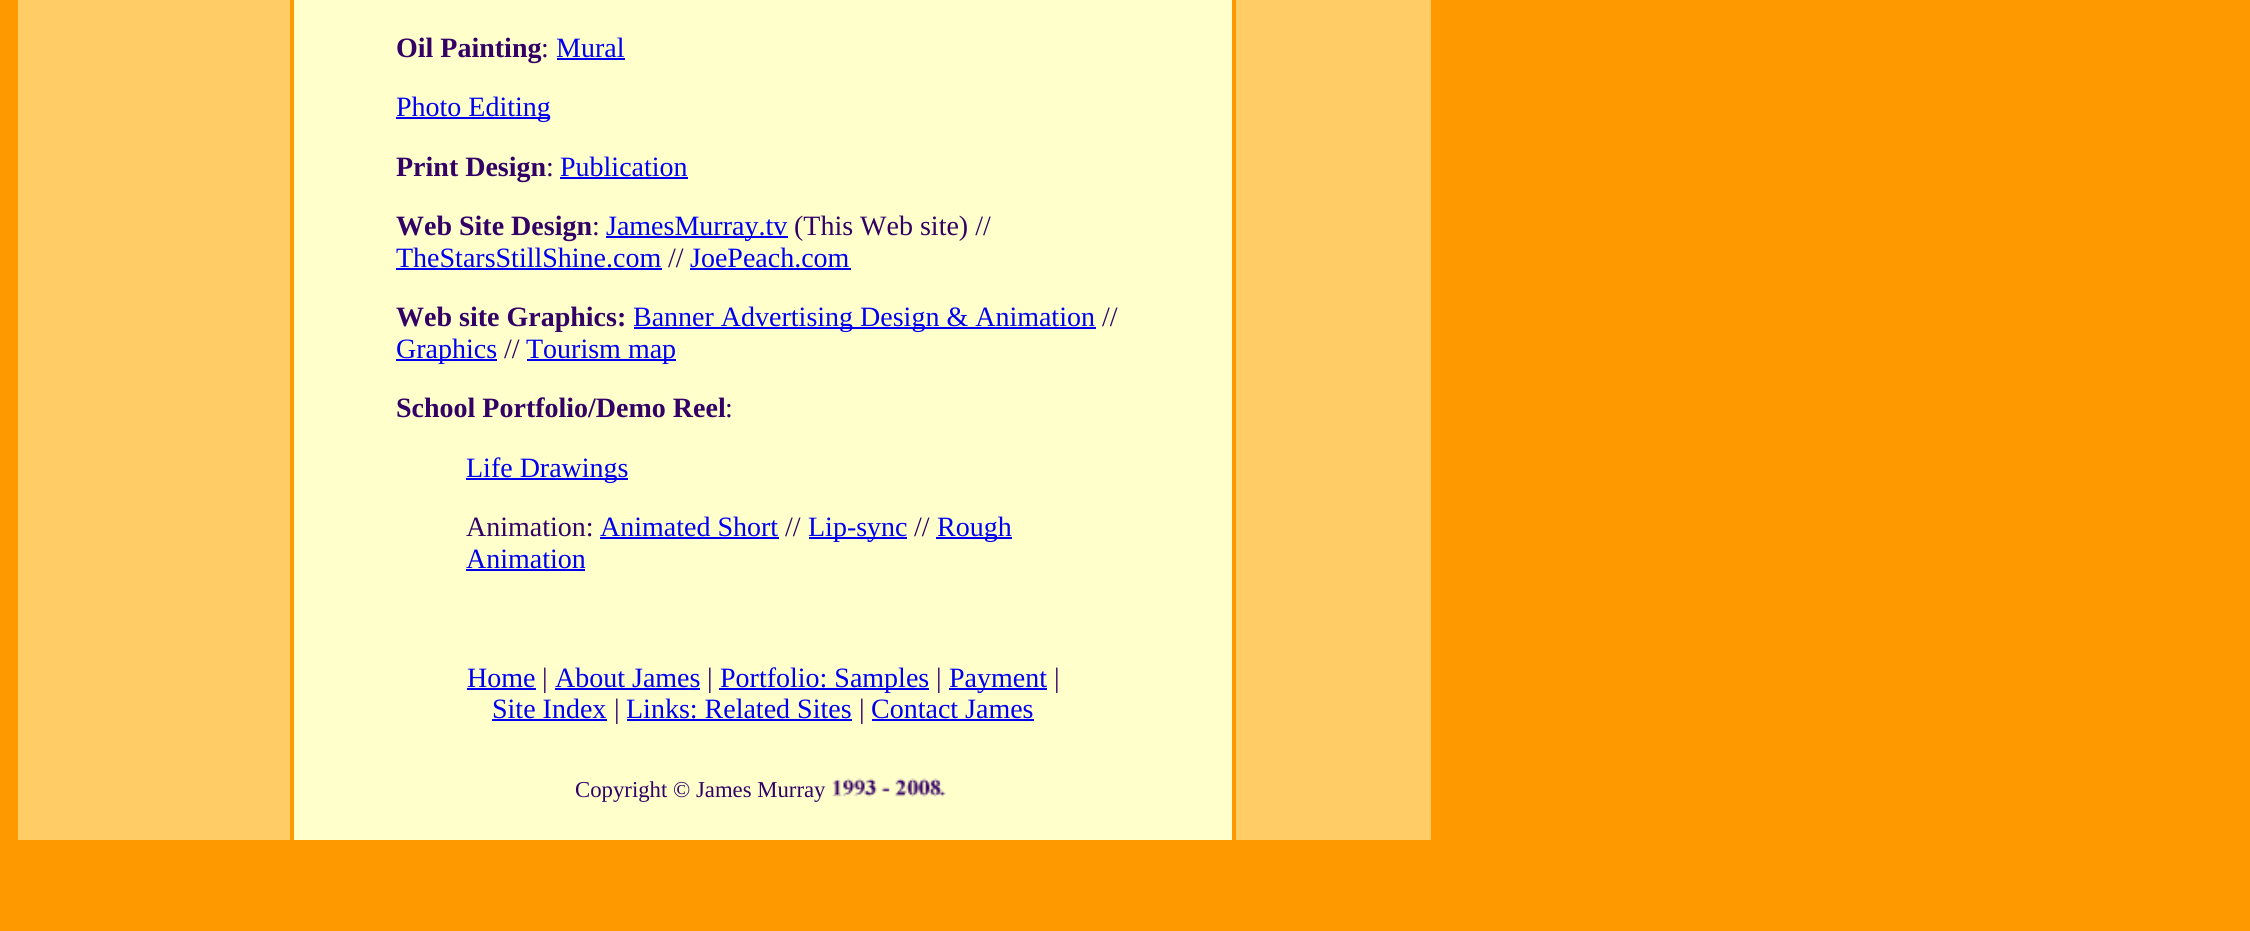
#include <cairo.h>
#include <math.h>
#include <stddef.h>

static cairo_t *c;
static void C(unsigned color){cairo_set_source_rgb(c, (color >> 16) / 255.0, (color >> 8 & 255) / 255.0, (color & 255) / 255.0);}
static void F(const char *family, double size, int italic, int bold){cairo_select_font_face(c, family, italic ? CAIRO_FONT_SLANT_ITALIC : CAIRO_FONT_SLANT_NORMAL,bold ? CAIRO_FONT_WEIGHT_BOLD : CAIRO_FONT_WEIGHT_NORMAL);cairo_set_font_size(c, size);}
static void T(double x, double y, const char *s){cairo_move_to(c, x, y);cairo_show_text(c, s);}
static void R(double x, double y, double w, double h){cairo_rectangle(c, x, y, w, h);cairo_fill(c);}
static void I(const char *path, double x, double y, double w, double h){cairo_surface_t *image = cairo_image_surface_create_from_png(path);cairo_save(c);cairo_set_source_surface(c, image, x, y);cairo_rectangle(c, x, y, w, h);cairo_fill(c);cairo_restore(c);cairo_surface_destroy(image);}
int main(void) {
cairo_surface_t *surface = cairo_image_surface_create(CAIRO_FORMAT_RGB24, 2250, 931);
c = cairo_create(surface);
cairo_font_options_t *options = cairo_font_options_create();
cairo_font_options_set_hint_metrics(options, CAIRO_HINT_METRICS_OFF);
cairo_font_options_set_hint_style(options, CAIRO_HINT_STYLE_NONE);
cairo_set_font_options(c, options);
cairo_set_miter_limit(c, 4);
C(0xff9900);
cairo_paint(c);
C(0xffcc66);
R(18,0,272,840);
C(0xffffcc);
R(294,0,938,840);
F("Liberation Serif",28,0,1);
C(0x330066);
T(396,57,"Oil Painting");
F("Liberation Serif",28,0,0);
T(541,57,":");
C(0x0000ee);
T(556,57,"Mural");
R(557,58,68,2);
R(396,117,154,2);
T(396,116,"Photo Editing");
F("Liberation Serif",28,0,1);
C(0x330066);
T(396,176,"Print Design");
F("Liberation Serif",28,0,0);
T(546,176,":");
C(0x0000ee);
T(560,176,"Publication");
R(560,177,128,2);
F("Liberation Serif",28,0,1);
C(0x330066);
T(396,235,"Web Site Design");
F("Liberation Serif",28,0,0);
T(592,235,":");
C(0x0000ee);
R(606,236,182,2);
T(606,235,"JamesMurray.tv");
C(0x330066);
T(794,235,"(This Web site) //");
C(0x0000ee);
T(396,267,"TheStarsStillShine.com");
R(396,268,266,2);
C(0x330066);
T(668,267,"//");
C(0x0000ee);
T(690,267,"JoePeach.com");
R(690,268,161,2);
F("Liberation Serif",28,0,1);
C(0x330066);
T(396,326,"Web site Graphics:");
C(0x0000ee);
R(634,327,462,2);
F("Liberation Serif",28,0,0);
T(633,326,"Banner Advertising Design & Animation");
C(0x330066);
T(1102,326,"//");
C(0x0000ee);
R(396,359,101,2);
T(396,358,"Graphics");
C(0x330066);
T(504,358,"//");
C(0x0000ee);
R(527,359,149,2);
T(526,358,"Tourism map");
F("Liberation Serif",28,0,1);
C(0x330066);
T(396,417,"School Portfolio/Demo Reel");
F("Liberation Serif",28,0,0);
T(725,417,":");
C(0x0000ee);
R(466,478,162,2);
T(466,477,"Life Drawings");
C(0x330066);
T(466,536,"Animation:");
C(0x0000ee);
T(600,536,"Animated Short");
R(600,537,179,2);
C(0x330066);
T(785,536,"//");
C(0x0000ee);
R(809,537,98,2);
T(808,536,"Lip-sync");
C(0x330066);
T(914,536,"//");
C(0x0000ee);
R(936,537,76,2);
T(937,536,"Rough");
T(466,568,"Animation");
R(466,569,119,2);
T(467,687,"Home");
R(467,688,69,2);
C(0x330066);
T(542,687,"|");
C(0x0000ee);
T(555,687,"About James");
R(555,688,145,2);
C(0x330066);
T(707,687,"|");
C(0x0000ee);
R(719,688,210,2);
T(720,687,"Portfolio: Samples");
C(0x330066);
T(936,687,"|");
C(0x0000ee);
R(949,688,98,2);
T(949,687,"Payment");
C(0x330066);
T(1054,687,"|");
C(0x0000ee);
T(492,718,"Site Index");
R(492,719,115,2);
C(0x330066);
T(614,718,"|");
C(0x0000ee);
T(626,718,"Links: Related Sites");
R(627,719,225,2);
C(0x330066);
T(859,718,"|");
C(0x0000ee);
T(871,718,"Contact James");
R(872,719,162,2);
F("Liberation Serif",22.75,0,0);
C(0x330066);
T(575,797,"Copyright © James Murray");
I("1.png",832,778,114,19);
C(0xffcc66);
R(1236,0,195,840);
cairo_surface_write_to_png(surface, "o.png");
cairo_font_options_destroy(options);
cairo_destroy(c);
cairo_surface_destroy(surface);
return 0;
}
